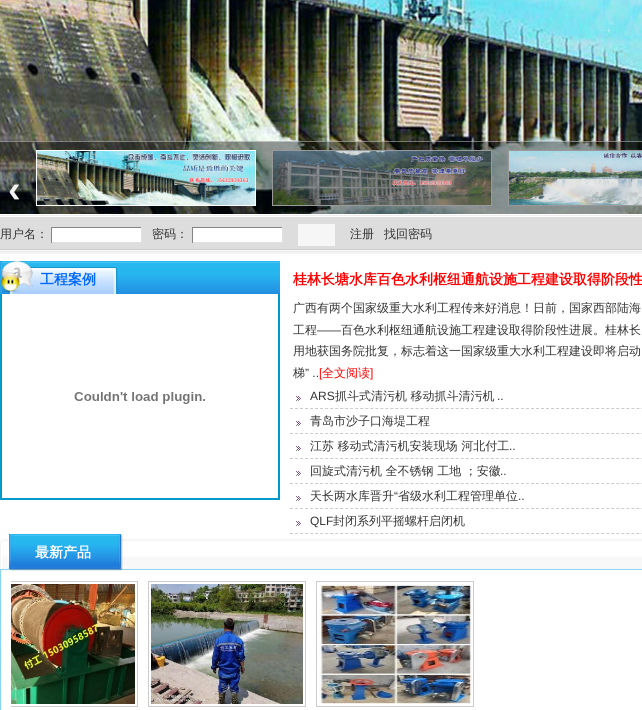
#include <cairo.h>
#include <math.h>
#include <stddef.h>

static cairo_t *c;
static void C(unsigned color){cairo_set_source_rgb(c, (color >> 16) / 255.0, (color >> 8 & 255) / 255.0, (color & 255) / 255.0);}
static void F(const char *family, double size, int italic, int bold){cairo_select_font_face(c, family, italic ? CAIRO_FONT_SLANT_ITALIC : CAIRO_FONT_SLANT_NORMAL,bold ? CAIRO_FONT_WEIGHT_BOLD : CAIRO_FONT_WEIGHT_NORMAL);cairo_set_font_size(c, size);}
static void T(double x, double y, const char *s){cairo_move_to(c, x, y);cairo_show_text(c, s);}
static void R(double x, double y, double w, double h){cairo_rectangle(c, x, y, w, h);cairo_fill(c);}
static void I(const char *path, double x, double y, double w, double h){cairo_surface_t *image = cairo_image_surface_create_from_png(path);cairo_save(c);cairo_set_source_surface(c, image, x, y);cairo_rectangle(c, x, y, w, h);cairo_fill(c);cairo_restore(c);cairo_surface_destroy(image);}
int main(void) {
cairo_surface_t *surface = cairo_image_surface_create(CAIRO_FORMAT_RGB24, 642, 710);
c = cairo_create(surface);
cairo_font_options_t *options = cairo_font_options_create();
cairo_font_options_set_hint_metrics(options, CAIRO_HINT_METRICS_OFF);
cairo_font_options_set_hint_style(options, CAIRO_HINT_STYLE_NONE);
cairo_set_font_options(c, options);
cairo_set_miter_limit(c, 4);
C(0xffffff);
cairo_paint(c);
I("1.png",0,215,642,39);
I("2.png",0,0,642,214);
cairo_set_source_rgba(c,0,0,0,0.4);
R(0,141,642,73);
cairo_set_source_rgba(c,1,1,1,0.4);
R(0,141,642,1);
F("Liberation Sans",38,0,1);
C(0xf1f1f1);
T(8,202,"‹");
cairo_rectangle(c,36.5,150.5,219,55);
C(0xffffff);
cairo_set_line_width(c,1);
cairo_stroke(c);
I("3.png",37,151,218,54);
cairo_rectangle(c,272.5,150.5,219,55);
C(0x999999);
cairo_stroke(c);
I("4.png",273,151,218,54);
cairo_rectangle(c,508.5,150.5,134,55);
cairo_stroke(c);
I("5.png",509,151,133,54);
F("WenQuanYi Zen Hei Medium",12,0,0);
C(0x333333);
T(0,238,"用户名：");
C(0xffffff);
R(52,228,89,14);
C(0x848484);
R(51,227,91,1);
C(0xe0e0e0);
R(141,227,1,16);
R(51,242,91,1);
C(0x848484);
R(51,227,1,16);
C(0x333333);
T(152,238,"密码：");
C(0xffffff);
R(193,228,89,14);
C(0x848484);
R(192,227,91,1);
C(0xe0e0e0);
R(282,227,1,16);
R(192,242,91,1);
C(0x848484);
R(192,227,1,16);
C(0xf6f6f6);
R(298,224,37,22);
C(0x333333);
T(350,238,"注册");
T(384,238,"找回密码");
I("6.png",0,261,280,33);
F("WenQuanYi Zen Hei",14,0,1);
C(0x0066ff);
T(40,284,"工程案例");
C(0x0099cc);
R(278,294,2,206);
R(0,498,280,2);
R(0,294,2,206);
I("7.png",74,392,131,12);
C(0xff0000);
T(293,284,"桂林长塘水库百色水利枢纽通航设施工程建设取得阶段性");
F("WenQuanYi Zen Hei Medium",12,0,0);
C(0x333333);
T(293,312,"广西有两个国家级重大水利工程传来好消息！日前，国家西部陆海");
T(293,334,"工程");
F("Liberation Sans",12,0,0);
T(317,334,"——");
F("WenQuanYi Zen Hei Medium",12,0,0);
T(341,334,"百色水利枢纽通航设施工程建设取得阶段性进展。桂林长");
T(293,355,"用地获国务院批复，标志着这一国家级重大水利工程建设即将启动");
T(293,377,"梯");
F("Liberation Sans",12,0,0);
T(305,377,"” ..");
C(0xff0000);
T(319,377,"[");
F("WenQuanYi Zen Hei Medium",12,0,0);
T(322,377,"全文阅读");
F("Liberation Sans",12,0,0);
T(370,377,"]");
I("8.png",296,396,5,5);
cairo_new_path(c);
cairo_move_to(c,290,408.5);
cairo_line_to(c,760,408.5);
C(0xcccccc);
cairo_set_dash(c,(double[]){3,2.02},2,0);
cairo_stroke(c);
C(0x333333);
T(310,400,"ARS");
F("WenQuanYi Zen Hei Medium",12,0,0);
T(335,400,"抓斗式清污机 移动抓斗清污机");
F("Liberation Sans",12,0,0);
T(497,400,"..");
I("8.png",296,421,5,5);
cairo_new_path(c);
cairo_move_to(c,290,433.5);
cairo_line_to(c,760,433.5);
C(0xcccccc);
cairo_stroke(c);
F("WenQuanYi Zen Hei Medium",12,0,0);
C(0x333333);
T(310,425,"青岛市沙子口海堤工程");
I("8.png",296,446,5,5);
cairo_new_path(c);
cairo_move_to(c,290,458.5);
cairo_line_to(c,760,458.5);
C(0xcccccc);
cairo_stroke(c);
C(0x333333);
T(310,450,"江苏 移动式清污机安装现场 河北付工");
F("Liberation Sans",12,0,0);
T(509,450,"..");
I("8.png",296,471,5,5);
cairo_new_path(c);
cairo_move_to(c,290,483.5);
cairo_line_to(c,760,483.5);
C(0xcccccc);
cairo_stroke(c);
F("WenQuanYi Zen Hei Medium",12,0,0);
C(0x333333);
T(310,475,"回旋式清污机 全不锈钢 工地 ；安徽");
F("Liberation Sans",12,0,0);
T(500,475,"..");
I("8.png",296,496,5,5);
cairo_new_path(c);
cairo_move_to(c,290,508.5);
cairo_line_to(c,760,508.5);
C(0xcccccc);
cairo_stroke(c);
F("WenQuanYi Zen Hei Medium",12,0,0);
C(0x333333);
T(310,500,"天长两水库晋升");
F("Liberation Sans",12,0,0);
T(394,500,"“");
F("WenQuanYi Zen Hei Medium",12,0,0);
T(398,500,"省级水利工程管理单位");
F("Liberation Sans",12,0,0);
T(518,500,"..");
I("8.png",296,521,5,5);
cairo_new_path(c);
cairo_move_to(c,290,533.5);
cairo_line_to(c,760,533.5);
C(0xcccccc);
cairo_stroke(c);
C(0x333333);
T(310,525,"QLF");
F("WenQuanYi Zen Hei Medium",12,0,0);
T(333,525,"封闭系列平摇螺杆启闭机");
I("9.png",0,534,642,37);
F("WenQuanYi Zen Hei",14,0,1);
C(0xffffff);
T(35,557,"最新产品");
C(0x85d5f6);
R(0,571,1,139);
cairo_save(c);
cairo_rectangle(c,11,576,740,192);
cairo_clip(c);
cairo_rectangle(c,-.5,581.5,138,125);
C(0xcccccc);
cairo_set_dash(c,NULL,0,0);
cairo_stroke(c);
cairo_restore(c);
I("10.png",11,584,124,120);
cairo_rectangle(c,148.5,581.5,157,125);
C(0xcccccc);
cairo_set_dash(c,NULL,0,0);
cairo_stroke(c);
I("11.png",151,584,152,120);
cairo_rectangle(c,316.5,581.5,157,125);
cairo_stroke(c);
I("12.png",319,584,152,120);
cairo_surface_write_to_png(surface, "o.png");
cairo_font_options_destroy(options);
cairo_destroy(c);
cairo_surface_destroy(surface);
return 0;
}
